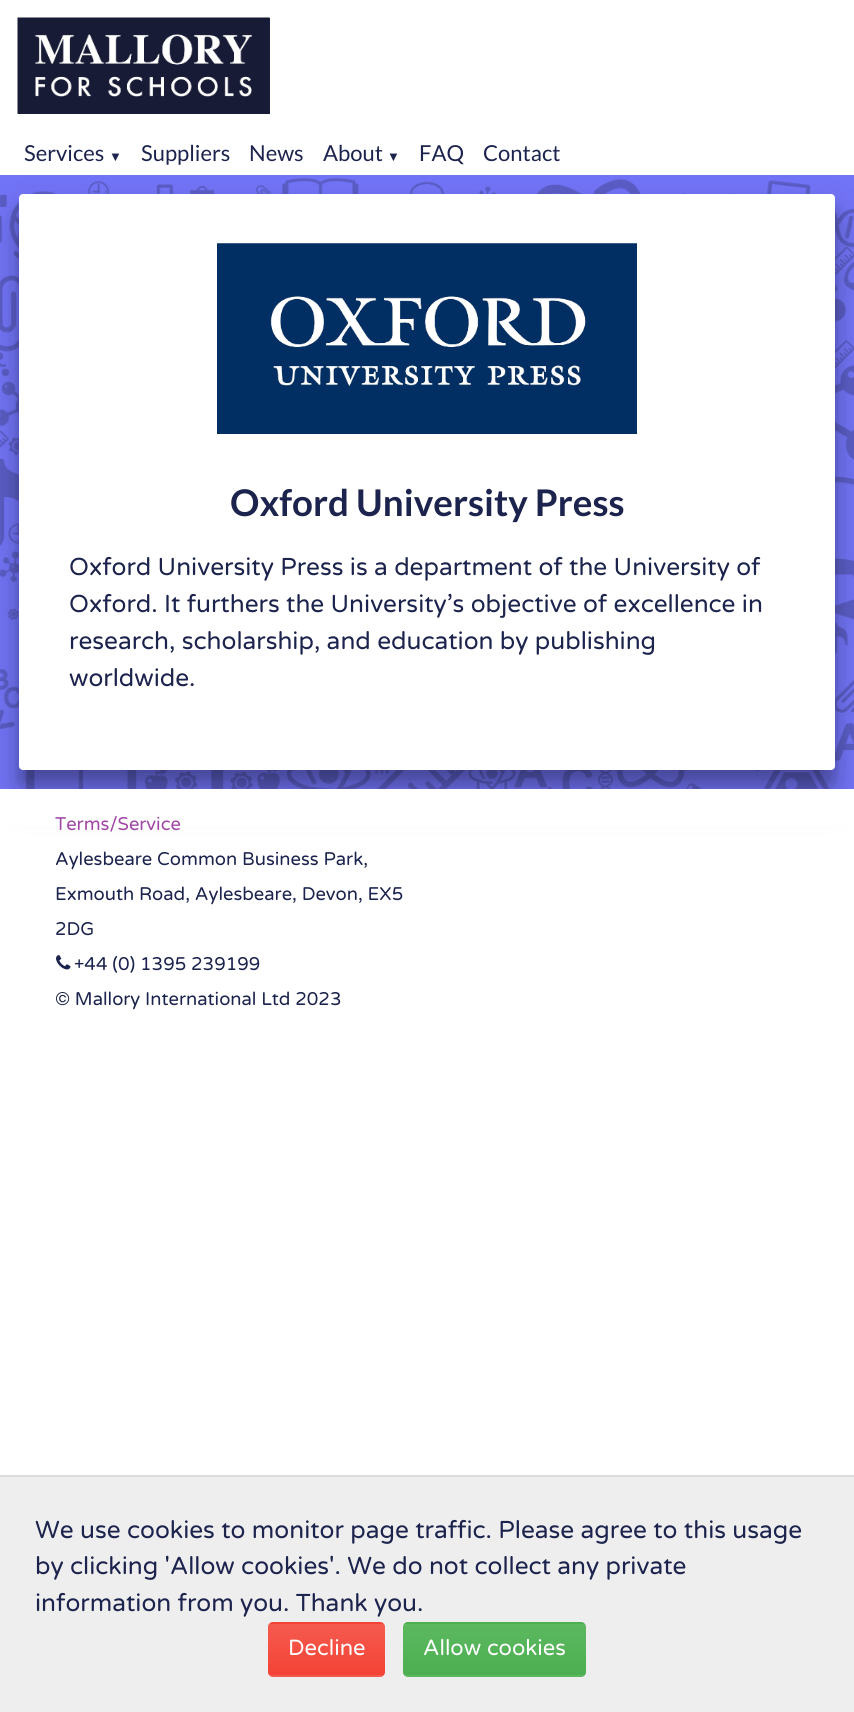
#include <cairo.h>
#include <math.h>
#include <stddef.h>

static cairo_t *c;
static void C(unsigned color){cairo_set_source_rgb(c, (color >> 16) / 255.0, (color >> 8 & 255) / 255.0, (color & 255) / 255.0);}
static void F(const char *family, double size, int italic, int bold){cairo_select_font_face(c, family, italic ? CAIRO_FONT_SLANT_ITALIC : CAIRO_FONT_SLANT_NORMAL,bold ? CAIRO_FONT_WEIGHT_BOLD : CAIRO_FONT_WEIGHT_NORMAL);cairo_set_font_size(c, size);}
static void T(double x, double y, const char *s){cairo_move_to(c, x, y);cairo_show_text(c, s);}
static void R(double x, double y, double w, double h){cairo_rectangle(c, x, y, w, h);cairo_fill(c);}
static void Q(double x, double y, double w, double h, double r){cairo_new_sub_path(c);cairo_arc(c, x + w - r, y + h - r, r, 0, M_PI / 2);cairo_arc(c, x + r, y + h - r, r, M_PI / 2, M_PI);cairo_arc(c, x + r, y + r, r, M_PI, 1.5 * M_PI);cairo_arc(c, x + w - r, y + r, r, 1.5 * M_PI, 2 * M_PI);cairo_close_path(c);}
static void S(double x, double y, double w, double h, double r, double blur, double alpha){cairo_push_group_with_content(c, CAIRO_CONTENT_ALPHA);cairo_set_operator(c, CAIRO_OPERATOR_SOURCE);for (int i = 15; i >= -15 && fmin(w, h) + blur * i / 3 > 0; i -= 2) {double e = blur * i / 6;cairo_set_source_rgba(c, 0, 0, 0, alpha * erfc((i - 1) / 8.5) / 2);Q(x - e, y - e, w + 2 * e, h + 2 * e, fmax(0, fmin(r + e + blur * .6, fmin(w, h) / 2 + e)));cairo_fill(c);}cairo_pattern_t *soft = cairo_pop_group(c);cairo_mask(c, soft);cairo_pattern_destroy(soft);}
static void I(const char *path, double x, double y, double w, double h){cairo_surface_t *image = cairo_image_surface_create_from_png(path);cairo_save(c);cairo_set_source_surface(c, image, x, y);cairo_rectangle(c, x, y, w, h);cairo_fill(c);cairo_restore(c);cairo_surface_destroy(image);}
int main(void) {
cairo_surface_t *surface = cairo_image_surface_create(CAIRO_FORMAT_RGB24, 854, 1712);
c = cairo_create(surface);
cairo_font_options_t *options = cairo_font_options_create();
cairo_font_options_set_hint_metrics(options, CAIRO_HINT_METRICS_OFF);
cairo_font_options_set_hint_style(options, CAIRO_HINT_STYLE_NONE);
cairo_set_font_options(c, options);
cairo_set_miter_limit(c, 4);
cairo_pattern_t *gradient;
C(0xffffff);
cairo_paint(c);
C(0x1c234d);
R(18,18,252,96);
I("1.png",17,17,253,97);
C(0x7274f8);
R(0,175,854,614);
I("2.png",0,178,854,611);
C(0x000000);
S(19,215,816,576,4,21,.22);
F("Lato",22,0,0);
C(0x1c234d);
T(24,161,"Services");
F("Liberation Sans",13,0,0);
T(109,161,"▼");
F("Lato",22,0,0);
T(141,161,"Suppliers");
T(249,161,"News");
T(323,161,"About");
F("Liberation Sans",13,0,0);
T(387,161,"▼");
F("Lato",22,0,0);
T(419,161,"FAQ");
T(483,161,"Contact");
C(0x000000);
S(19,208,816,576,4,7,.22);
C(0xffffff);
Q(19,194,816,576,4);
cairo_fill(c);
I("3.png",217,243,420,191);
F("Lato",36.75,0,1);
C(0x1c234d);
T(230,516,"Oxford University Press");
F("Varela Round",24.5,0,0);
T(69,575,"Oxford University Press is a department of the University of");
T(69,612,"Oxford. It furthers the University’s objective of excellence in");
T(69,649,"research, scholarship, and education by publishing");
T(69,686,"worldwide.");
C(0xffffff);
R(0,789,854,37);
F("Varela Round",18.4,0,0);
C(0xa147a5);
T(55,830,"Terms/Service");
C(0x1c234d);
T(55,865,"Aylesbeare Common Business Park,");
T(55,900,"Exmouth Road, Aylesbeare, Devon, EX5");
T(55,935,"2DG");
I("4.png",56,955,15,15);
T(74,970,"+44 (0) 1395 239199");
T(55,1005,"© Mallory International Ltd 2023");
C(0xeeeeee);
R(0,1477,854,235);
C(0xdddddd);
R(0,1475,854,2);
F("Varela Round",24.5,0,0);
C(0x1c234d);
T(35,1538,"We use cookies to monitor page traffic. Please agree to this usage");
T(35,1574,"by clicking 'Allow cookies'. We do not collect any private");
T(35,1611,"information from you. Thank you.");
cairo_save(c);
Q(268,1622,117,55,5);
cairo_clip(c);
gradient = cairo_pattern_create_linear(326,1573,326,1624);
cairo_pattern_add_color_stop_rgba(gradient,0,0.961,0.353,0.306,1);
cairo_pattern_add_color_stop_rgba(gradient,1,0.957,0.263,0.212,1);
cairo_set_source(c,gradient);
cairo_pattern_destroy(gradient);
R(268,1622,117,2);
gradient = cairo_pattern_create_linear(326,1624,326,1675);
cairo_pattern_add_color_stop_rgba(gradient,0,0.961,0.353,0.306,1);
cairo_pattern_add_color_stop_rgba(gradient,1,0.957,0.263,0.212,1);
cairo_set_source(c,gradient);
cairo_pattern_destroy(gradient);
R(268,1624,117,51);
gradient = cairo_pattern_create_linear(326,1675,326,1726);
cairo_pattern_add_color_stop_rgba(gradient,0,0.961,0.353,0.306,1);
cairo_pattern_add_color_stop_rgba(gradient,1,0.957,0.263,0.212,1);
cairo_set_source(c,gradient);
cairo_pattern_destroy(gradient);
R(268,1675,117,2);
cairo_restore(c);
F("Varela Round",22,0,0);
C(0xffffff);
T(288,1655,"Decline");
cairo_save(c);
Q(403,1622,183,55,5);
cairo_clip(c);
gradient = cairo_pattern_create_linear(494,1573,494,1624);
cairo_pattern_add_color_stop_rgba(gradient,0,0.361,0.722,0.376,1);
cairo_pattern_add_color_stop_rgba(gradient,1,0.298,0.686,0.314,1);
cairo_set_source(c,gradient);
cairo_pattern_destroy(gradient);
R(403,1622,183,2);
gradient = cairo_pattern_create_linear(494,1624,494,1675);
cairo_pattern_add_color_stop_rgba(gradient,0,0.361,0.722,0.376,1);
cairo_pattern_add_color_stop_rgba(gradient,1,0.298,0.686,0.314,1);
cairo_set_source(c,gradient);
cairo_pattern_destroy(gradient);
R(403,1624,183,51);
gradient = cairo_pattern_create_linear(494,1675,494,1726);
cairo_pattern_add_color_stop_rgba(gradient,0,0.361,0.722,0.376,1);
cairo_pattern_add_color_stop_rgba(gradient,1,0.298,0.686,0.314,1);
cairo_set_source(c,gradient);
cairo_pattern_destroy(gradient);
R(403,1675,183,2);
cairo_restore(c);
T(423,1655,"Allow cookies");
cairo_surface_write_to_png(surface, "o.png");
cairo_font_options_destroy(options);
cairo_destroy(c);
cairo_surface_destroy(surface);
return 0;
}
